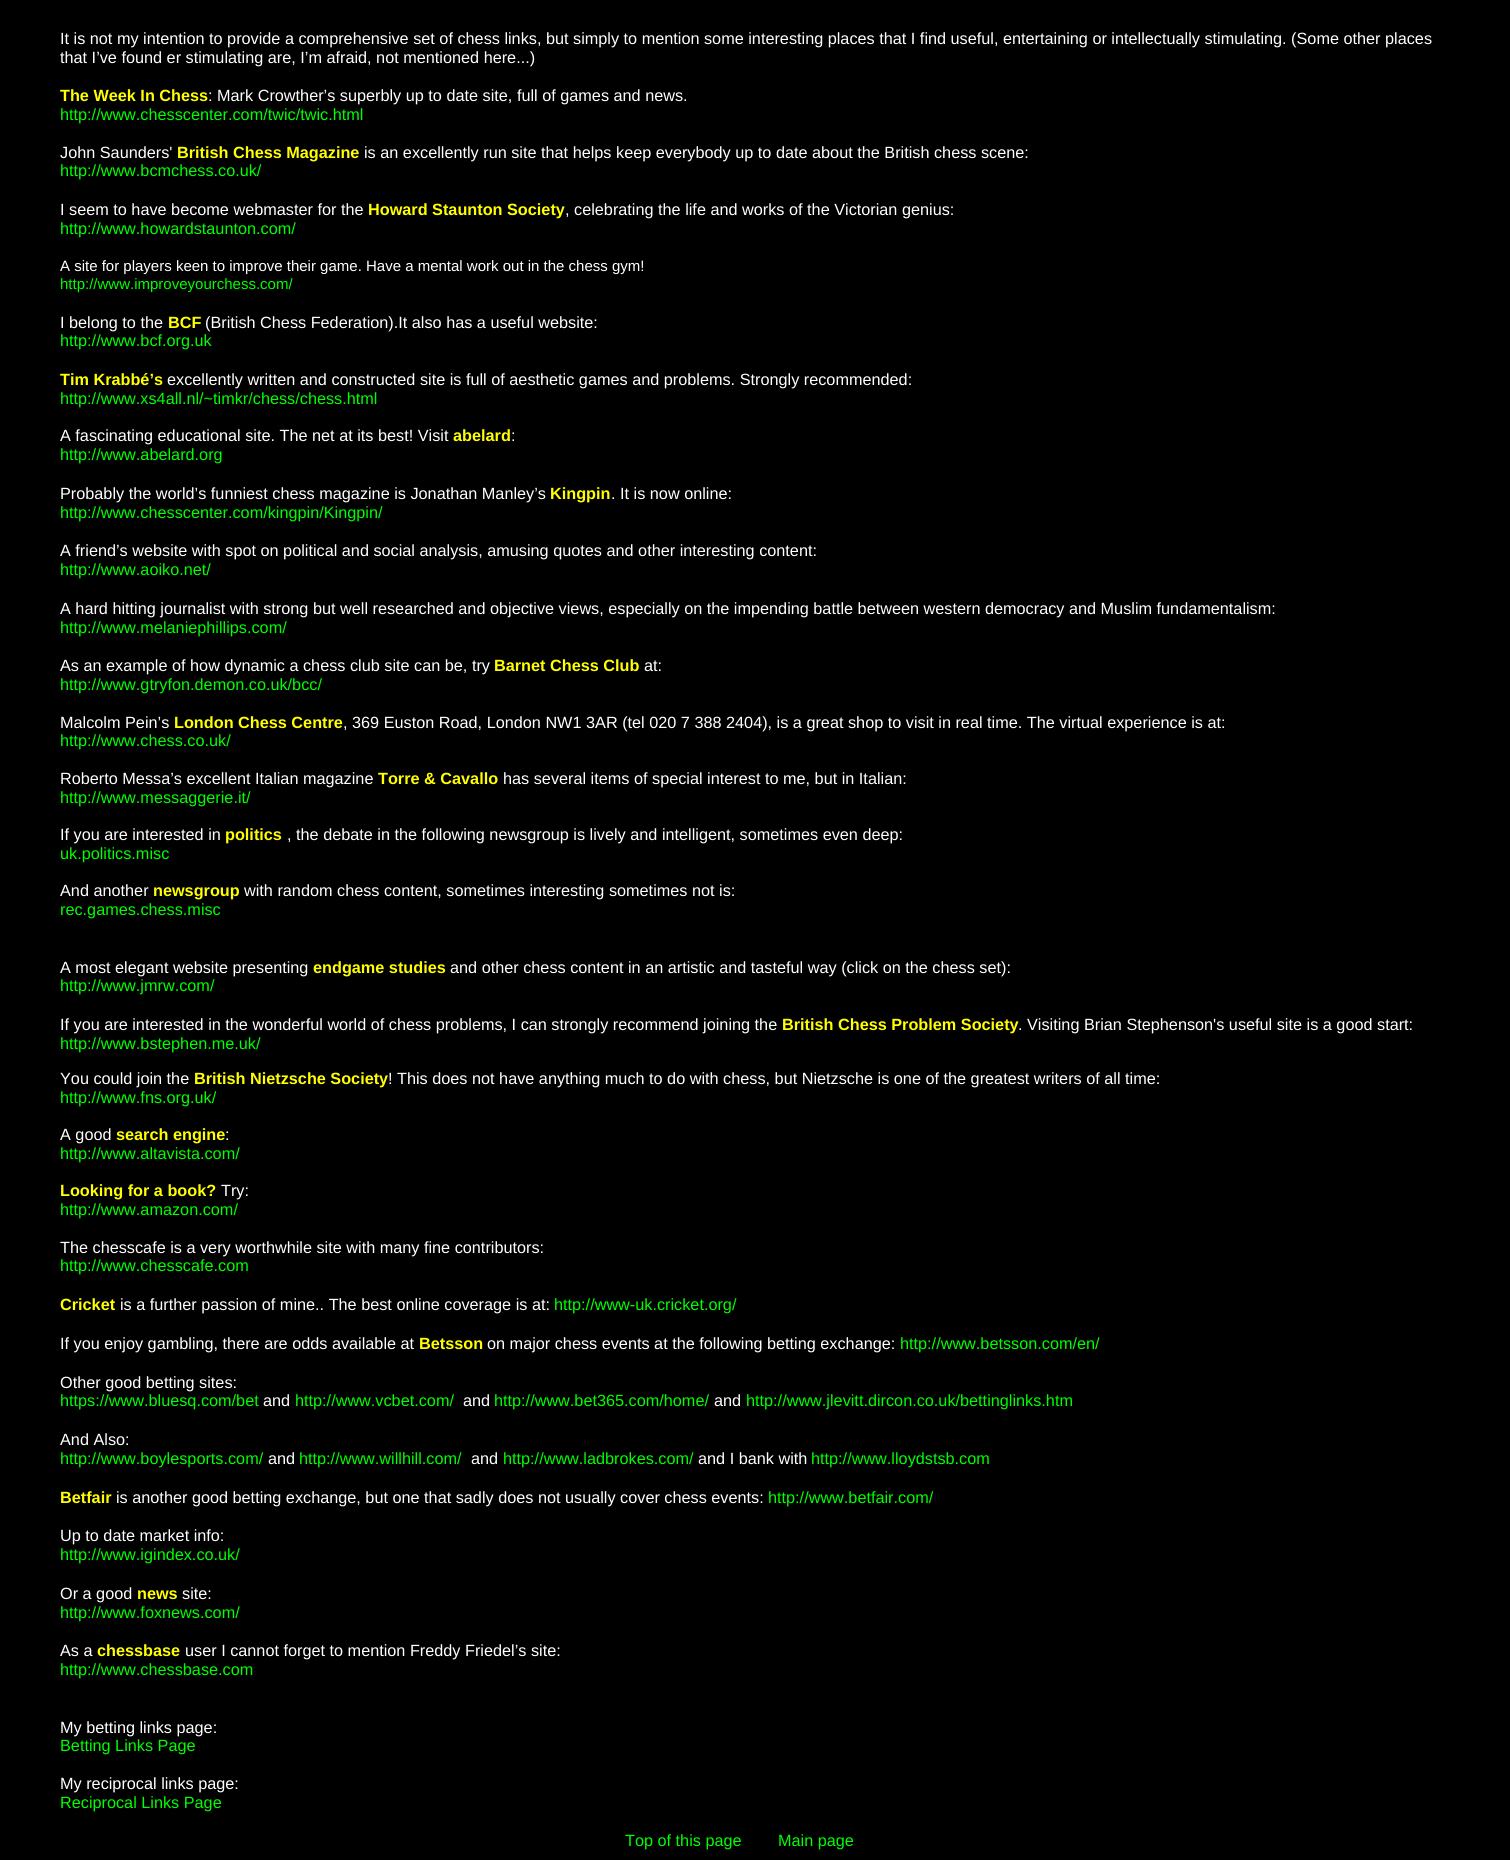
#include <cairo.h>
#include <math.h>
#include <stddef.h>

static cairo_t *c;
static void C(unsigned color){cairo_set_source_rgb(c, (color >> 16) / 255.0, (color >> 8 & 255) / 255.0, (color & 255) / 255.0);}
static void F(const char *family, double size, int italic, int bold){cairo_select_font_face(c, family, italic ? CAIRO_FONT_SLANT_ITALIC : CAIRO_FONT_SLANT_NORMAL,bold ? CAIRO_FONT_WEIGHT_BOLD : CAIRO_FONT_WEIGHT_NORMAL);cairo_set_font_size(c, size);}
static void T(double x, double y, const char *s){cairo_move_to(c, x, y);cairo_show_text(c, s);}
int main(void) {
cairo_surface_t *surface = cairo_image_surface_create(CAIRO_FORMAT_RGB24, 1510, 1860);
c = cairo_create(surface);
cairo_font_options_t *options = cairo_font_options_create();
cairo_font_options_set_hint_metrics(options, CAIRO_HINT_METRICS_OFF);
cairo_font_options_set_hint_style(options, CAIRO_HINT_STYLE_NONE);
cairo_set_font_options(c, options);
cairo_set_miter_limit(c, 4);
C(0x000000);
cairo_paint(c);
F("Liberation Sans",16.25,0,0);
C(0xffffff);
T(60,44,"It is not my intention to provide a comprehensive set of chess links, but simply to mention some interesting places that I find useful, entertaining or intellectually stimulating. (Some other places");
T(60,63,"that I’ve found er stimulating are, I’m afraid, not mentioned here...)");
F("Liberation Sans",16.25,0,1);
C(0xffff00);
T(60,101,"The Week In Chess");
F("Liberation Sans",16.25,0,0);
C(0xffffff);
T(208,101,": Mark Crowther’s superbly up to date site, full of games and news.");
C(0x00ff00);
T(60,120,"http://www.chesscenter.com/twic/twic.html");
C(0xffffff);
T(60,158,"John Saunders'");
F("Liberation Sans",16.25,0,1);
C(0xffff00);
T(177,158,"British Chess Magazine");
F("Liberation Sans",16.25,0,0);
C(0xffffff);
T(364,158,"is an excellently run site that helps keep everybody up to date about the British chess scene:");
C(0x00ff00);
T(60,176,"http://www.bcmchess.co.uk/");
C(0xffffff);
T(60,215,"I seem to have become webmaster for the");
F("Liberation Sans",16.25,0,1);
C(0xffff00);
T(368,215,"Howard Staunton Society");
F("Liberation Sans",16.25,0,0);
C(0xffffff);
T(565,215,", celebrating the life and works of the Victorian genius:");
C(0x00ff00);
T(60,234,"http://www.howardstaunton.com/");
F("Liberation Sans",15,0,0);
C(0xffffff);
T(60,271,"A site for players keen to improve their game. Have a mental work out in the chess gym!");
C(0x00ff00);
T(60,289,"http://www.improveyourchess.com/");
F("Liberation Sans",16.25,0,0);
C(0xffffff);
T(60,328,"I belong to the");
F("Liberation Sans",16.25,0,1);
C(0xffff00);
T(168,328,"BCF");
F("Liberation Sans",16.25,0,0);
C(0xffffff);
T(205,328,"(British Chess Federation).It also has a useful website:");
C(0x00ff00);
T(60,346,"http://www.bcf.org.uk");
F("Liberation Sans",16.25,0,1);
C(0xffff00);
T(60,385,"Tim Krabbé’s");
F("Liberation Sans",16.25,0,0);
C(0xffffff);
T(167,385,"excellently written and constructed site is full of aesthetic games and problems. Strongly recommended:");
C(0x00ff00);
T(60,404,"http://www.xs4all.nl/~timkr/chess/chess.html");
C(0xffffff);
T(60,441,"A fascinating educational site. The net at its best! Visit");
F("Liberation Sans",16.25,0,1);
C(0xffff00);
T(453,441,"abelard");
F("Liberation Sans",16.25,0,0);
C(0xffffff);
T(511,441,":");
C(0x00ff00);
T(60,460,"http://www.abelard.org");
C(0xffffff);
T(60,499,"Probably the world’s funniest chess magazine is Jonathan Manley’s");
F("Liberation Sans",16.25,0,1);
C(0xffff00);
T(550,499,"Kingpin");
F("Liberation Sans",16.25,0,0);
C(0xffffff);
T(611,499,". It is now online:");
C(0x00ff00);
T(60,518,"http://www.chesscenter.com/kingpin/Kingpin/");
C(0xffffff);
T(60,556,"A friend’s website with spot on political and social analysis, amusing quotes and other interesting content:");
C(0x00ff00);
T(60,575,"http://www.aoiko.net/");
C(0xffffff);
T(60,614,"A hard hitting journalist with strong but well researched and objective views, especially on the impending battle between western democracy and Muslim fundamentalism:");
C(0x00ff00);
T(60,633,"http://www.melaniephillips.com/");
C(0xffffff);
T(60,671,"As an example of how dynamic a chess club site can be, try");
F("Liberation Sans",16.25,0,1);
C(0xffff00);
T(494,671,"Barnet Chess Club");
F("Liberation Sans",16.25,0,0);
C(0xffffff);
T(644,671,"at:");
C(0x00ff00);
T(60,690,"http://www.gtryfon.demon.co.uk/bcc/");
C(0xffffff);
T(60,728,"Malcolm Pein’s");
F("Liberation Sans",16.25,0,1);
C(0xffff00);
T(174,728,"London Chess Centre");
F("Liberation Sans",16.25,0,0);
C(0xffffff);
T(343,728,", 369 Euston Road, London NW1 3AR (tel 020 7 388 2404), is a great shop to visit in real time. The virtual experience is at:");
C(0x00ff00);
T(60,746,"http://www.chess.co.uk/");
C(0xffffff);
T(60,784,"Roberto Messa’s excellent Italian magazine");
F("Liberation Sans",16.25,0,1);
C(0xffff00);
T(378,784,"Torre & Cavallo");
F("Liberation Sans",16.25,0,0);
C(0xffffff);
T(503,784,"has several items of special interest to me, but in Italian:");
C(0x00ff00);
T(60,803,"http://www.messaggerie.it/");
C(0xffffff);
T(60,840,"If you are interested in");
F("Liberation Sans",16.25,0,1);
C(0xffff00);
T(225,840,"politics");
F("Liberation Sans",16.25,0,0);
C(0xffffff);
T(287,840,", the debate in the following newsgroup is lively and intelligent, sometimes even deep:");
C(0x00ff00);
T(60,859,"uk.politics.misc");
C(0xffffff);
T(60,896,"And another");
F("Liberation Sans",16.25,0,1);
C(0xffff00);
T(153,896,"newsgroup");
F("Liberation Sans",16.25,0,0);
C(0xffffff);
T(244,896,"with random chess content, sometimes interesting sometimes not is:");
C(0x00ff00);
T(60,915,"rec.games.chess.misc");
C(0xffffff);
T(60,973,"A most elegant website presenting");
F("Liberation Sans",16.25,0,1);
C(0xffff00);
T(313,973,"endgame studies");
F("Liberation Sans",16.25,0,0);
C(0xffffff);
T(450,973,"and other chess content in an artistic and tasteful way (click on the chess set):");
C(0x00ff00);
T(60,991,"http://www.jmrw.com/");
C(0xffffff);
T(60,1030,"If you are interested in the wonderful world of chess problems, I can strongly recommend joining the");
F("Liberation Sans",16.25,0,1);
C(0xffff00);
T(782,1030,"British Chess Problem Society");
F("Liberation Sans",16.25,0,0);
C(0xffffff);
T(1018,1030,". Visiting Brian Stephenson's useful site is a good start:");
C(0x00ff00);
T(60,1049,"http://www.bstephen.me.uk/");
C(0xffffff);
T(60,1084,"You could join the");
F("Liberation Sans",16.25,0,1);
C(0xffff00);
T(194,1084,"British Nietzsche Society");
F("Liberation Sans",16.25,0,0);
C(0xffffff);
T(388,1084,"! This does not have anything much to do with chess, but Nietzsche is one of the greatest writers of all time:");
C(0x00ff00);
T(60,1103,"http://www.fns.org.uk/");
C(0xffffff);
T(60,1140,"A good");
F("Liberation Sans",16.25,0,1);
C(0xffff00);
T(116,1140,"search engine");
F("Liberation Sans",16.25,0,0);
C(0xffffff);
T(225,1140,":");
C(0x00ff00);
T(60,1159,"http://www.altavista.com/");
F("Liberation Sans",16.25,0,1);
C(0xffff00);
T(60,1196,"Looking for a book?");
F("Liberation Sans",16.25,0,0);
C(0xffffff);
T(221,1196,"Try:");
C(0x00ff00);
T(60,1215,"http://www.amazon.com/");
C(0xffffff);
T(60,1253,"The chesscafe is a very worthwhile site with many fine contributors:");
C(0x00ff00);
T(60,1271,"http://www.chesscafe.com");
F("Liberation Sans",16.25,0,1);
C(0xffff00);
T(60,1310,"Cricket");
F("Liberation Sans",16.25,0,0);
C(0xffffff);
T(120,1310,"is a further passion of mine.. The best online coverage is at:");
C(0x00ff00);
T(554,1310,"http://www-uk.cricket.org/");
C(0xffffff);
T(60,1349,"If you enjoy gambling, there are odds available at");
F("Liberation Sans",16.25,0,1);
C(0xffff00);
T(419,1349,"Betsson");
F("Liberation Sans",16.25,0,0);
C(0xffffff);
T(487,1349,"on major chess events at the following betting exchange:");
C(0x00ff00);
T(900,1349,"http://www.betsson.com/en/");
C(0xffffff);
T(60,1388,"Other good betting sites:");
C(0x00ff00);
T(60,1406,"https://www.bluesq.com/bet");
C(0xffffff);
T(263,1406,"and");
C(0x00ff00);
T(295,1406,"http://www.vcbet.com/");
C(0xffffff);
T(463,1406,"and");
C(0x00ff00);
T(494,1406,"http://www.bet365.com/home/");
C(0xffffff);
T(714,1406,"and");
C(0x00ff00);
T(746,1406,"http://www.jlevitt.dircon.co.uk/bettinglinks.htm");
C(0xffffff);
T(60,1445,"And Also:");
C(0x00ff00);
T(60,1464,"http://www.boylesports.com/");
C(0xffffff);
T(268,1464,"and");
C(0x00ff00);
T(299,1464,"http://www.willhill.com/");
C(0xffffff);
T(471,1464,"and");
C(0x00ff00);
T(503,1464,"http://www.ladbrokes.com/");
C(0xffffff);
T(698,1464,"and I bank with");
C(0x00ff00);
T(811,1464,"http://www.lloydstsb.com");
F("Liberation Sans",16.25,0,1);
C(0xffff00);
T(60,1503,"Betfair");
F("Liberation Sans",16.25,0,0);
C(0xffffff);
T(116,1503,"is another good betting exchange, but one that sadly does not usually cover chess events:");
C(0x00ff00);
T(768,1503,"http://www.betfair.com/");
C(0xffffff);
T(60,1541,"Up to date market info:");
C(0x00ff00);
T(60,1560,"http://www.igindex.co.uk/");
C(0xffffff);
T(60,1599,"Or a good");
F("Liberation Sans",16.25,0,1);
C(0xffff00);
T(137,1599,"news");
F("Liberation Sans",16.25,0,0);
C(0xffffff);
T(182,1599,"site:");
C(0x00ff00);
T(60,1618,"http://www.foxnews.com/");
C(0xffffff);
T(60,1656,"As a");
F("Liberation Sans",16.25,0,1);
C(0xffff00);
T(97,1656,"chessbase");
F("Liberation Sans",16.25,0,0);
C(0xffffff);
T(185,1656,"user I cannot forget to mention Freddy Friedel’s site:");
C(0x00ff00);
T(60,1675,"http://www.chessbase.com");
C(0xffffff);
T(60,1733,"My betting links page:");
C(0x00ff00);
T(60,1751,"Betting Links Page");
C(0xffffff);
T(60,1789,"My reciprocal links page:");
C(0x00ff00);
T(60,1808,"Reciprocal Links Page");
T(625,1846,"Top of this page");
T(778,1846,"Main page");
cairo_surface_write_to_png(surface, "o.png");
cairo_font_options_destroy(options);
cairo_destroy(c);
cairo_surface_destroy(surface);
return 0;
}
